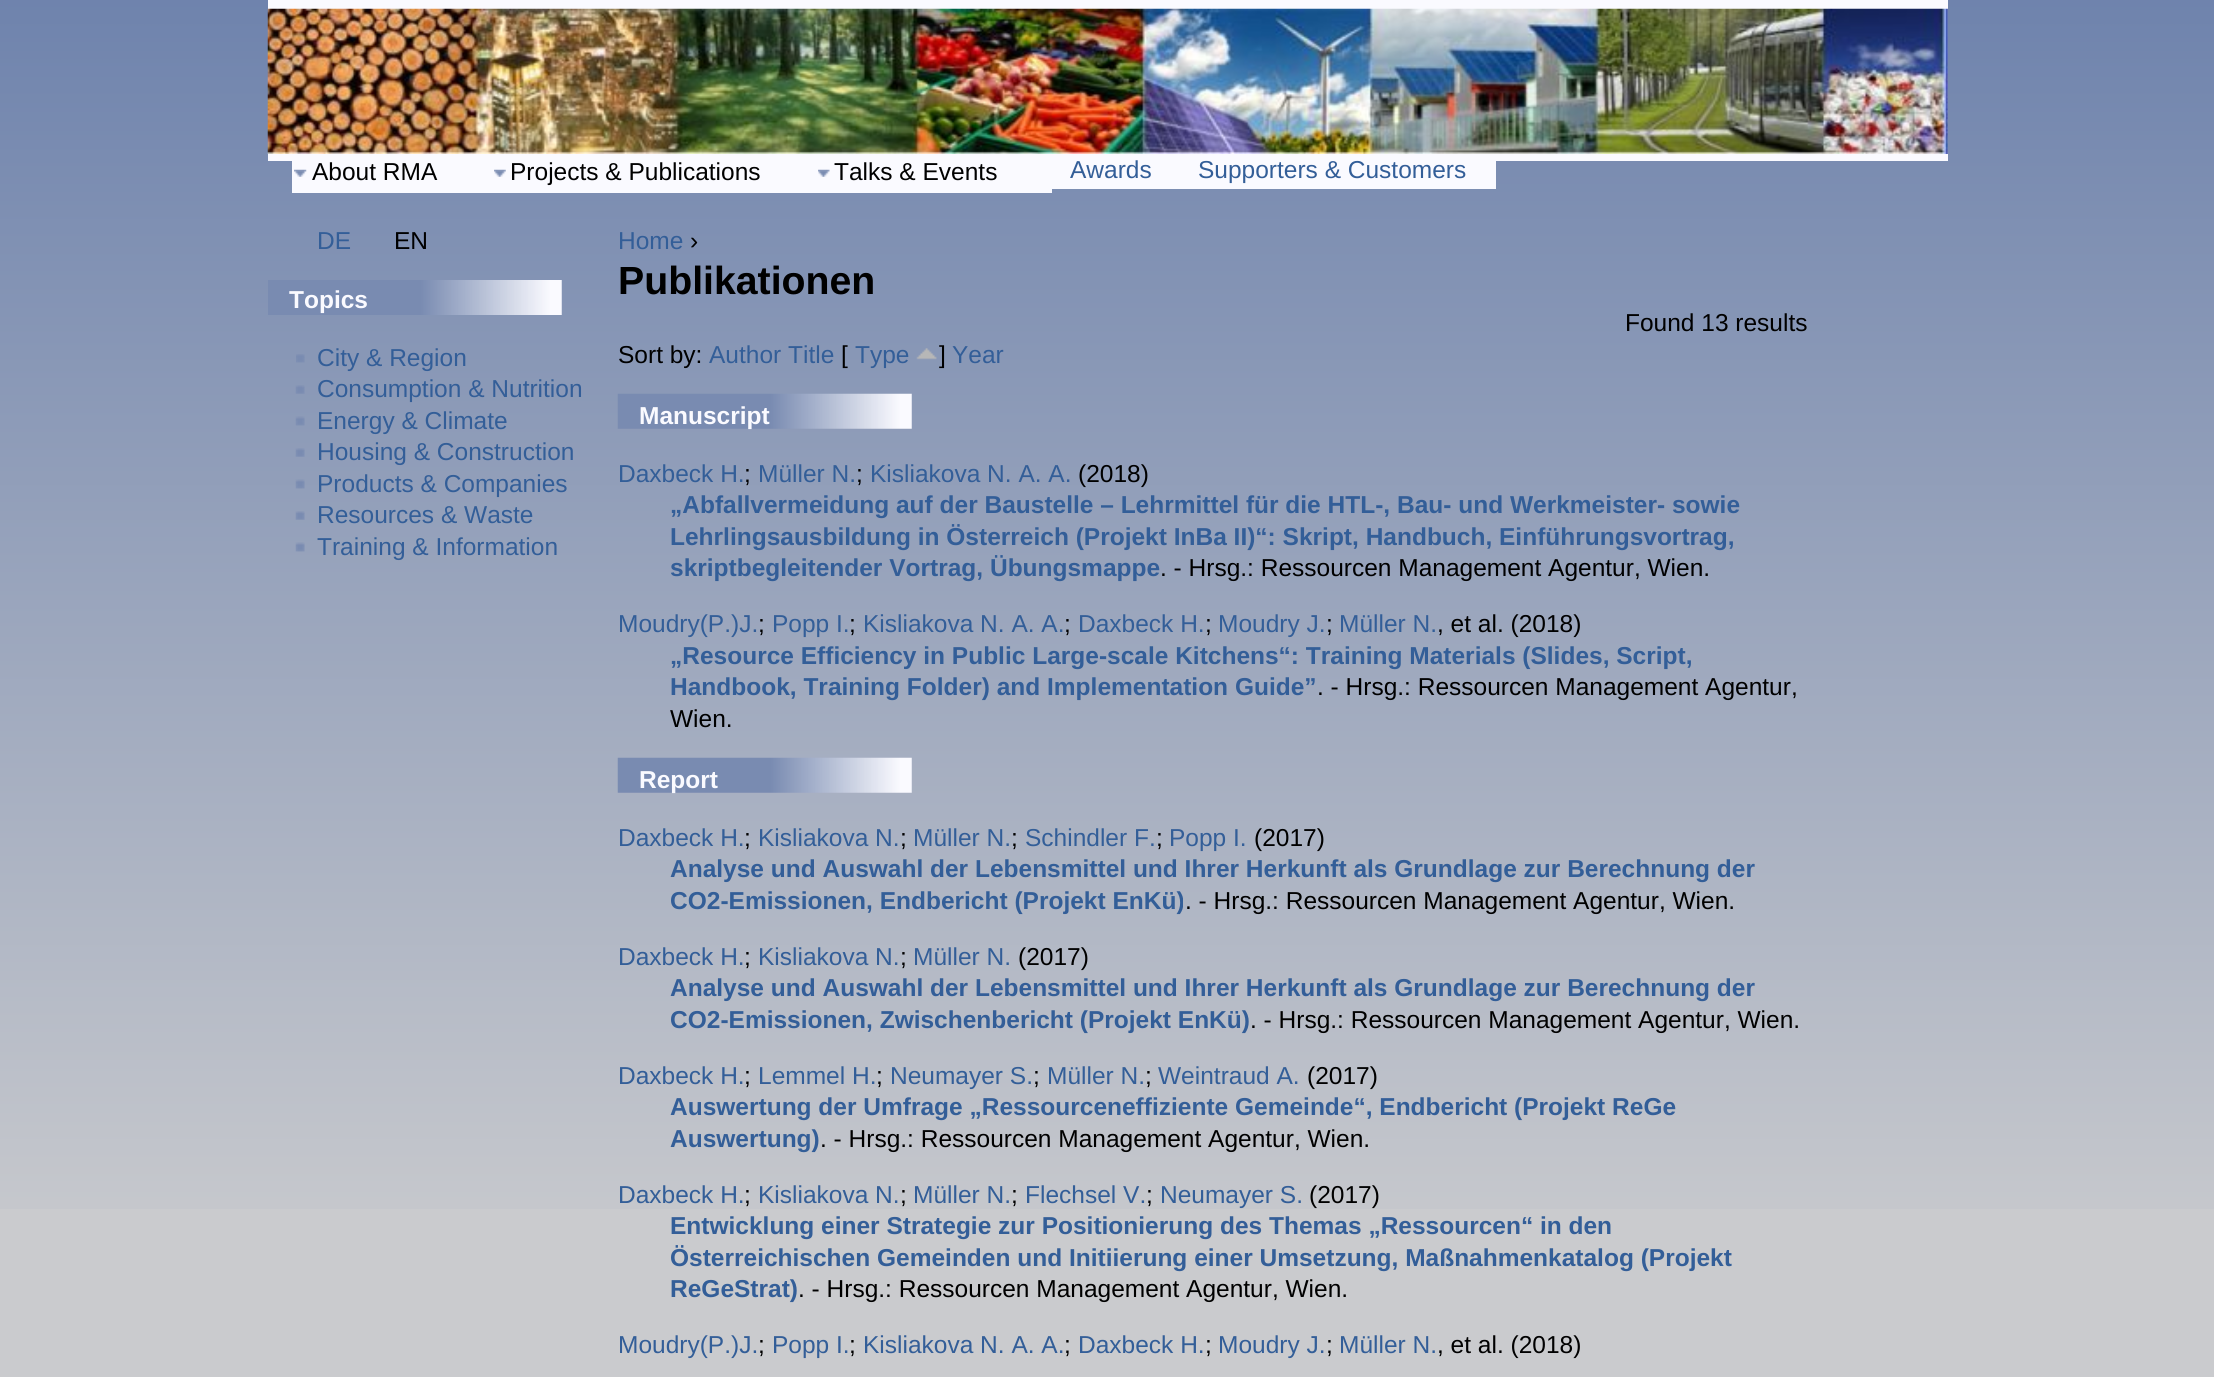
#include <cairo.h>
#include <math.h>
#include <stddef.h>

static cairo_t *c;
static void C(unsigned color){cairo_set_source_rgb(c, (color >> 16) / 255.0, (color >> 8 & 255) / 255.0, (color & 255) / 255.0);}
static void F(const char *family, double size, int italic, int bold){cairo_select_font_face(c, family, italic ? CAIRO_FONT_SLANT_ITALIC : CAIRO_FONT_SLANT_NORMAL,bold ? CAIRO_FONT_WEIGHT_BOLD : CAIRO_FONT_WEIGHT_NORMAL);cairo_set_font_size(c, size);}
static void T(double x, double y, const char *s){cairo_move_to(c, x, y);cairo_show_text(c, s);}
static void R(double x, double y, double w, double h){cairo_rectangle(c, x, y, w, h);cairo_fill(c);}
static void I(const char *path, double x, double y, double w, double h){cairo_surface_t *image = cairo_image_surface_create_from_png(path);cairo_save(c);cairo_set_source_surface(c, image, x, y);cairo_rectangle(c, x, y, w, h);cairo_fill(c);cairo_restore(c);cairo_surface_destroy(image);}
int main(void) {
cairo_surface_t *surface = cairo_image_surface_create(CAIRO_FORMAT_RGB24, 2214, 1377);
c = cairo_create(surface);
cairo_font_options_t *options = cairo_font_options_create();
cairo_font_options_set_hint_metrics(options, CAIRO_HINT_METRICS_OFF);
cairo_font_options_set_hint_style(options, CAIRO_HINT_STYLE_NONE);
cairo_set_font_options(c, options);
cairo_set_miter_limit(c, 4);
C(0xcacbce);
cairo_paint(c);
I("1.png",0,0,2214,1209);
C(0xfafaff);
R(268,0,1680,161);
I("2.png",267,8,1681,146);
R(292,161,200,32);
I("3.png",294,169,13,8);
F("Liberation Sans",24.5,0,0);
C(0x000000);
T(312,180,"About RMA");
C(0xfafaff);
R(494,161,320,30);
I("4.png",494,169,12,8);
cairo_rectangle(c,493,155,322,37);
cairo_stroke(c);
C(0x000000);
T(510,180,"Projects & Publications");
C(0xfafaff);
R(818,161,232,30);
I("5.png",818,169,12,8);
cairo_rectangle(c,817,155,234,37);
cairo_stroke(c);
C(0x000000);
T(834,180,"Talks & Events");
C(0xfafaff);
R(1052,161,444,28);
C(0x335e98);
T(1070,178,"Awards");
T(1198,178,"Supporters & Customers");
T(317,249,"DE");
C(0x000000);
T(394,249,"EN");
I("6.png",268,280,294,35);
F("Liberation Sans",24.5,0,1);
C(0xfafaff);
T(289,308,"Topics");
I("7.png",296,354,9,9);
F("Liberation Sans",24.5,0,0);
C(0x335e98);
T(317,366,"City & Region");
I("8.png",295,385,10,9);
T(317,397,"Consumption & Nutrition");
I("9.png",295,416,10,10);
T(317,429,"Energy & Climate");
I("10.png",295,448,10,9);
T(317,460,"Housing & Construction");
I("11.png",295,479,10,10);
T(317,492,"Products & Companies");
I("12.png",295,511,10,9);
T(317,523,"Resources & Waste");
I("13.png",295,542,10,10);
T(317,555,"Training & Information");
T(618,249,"Home");
C(0x000000);
T(690,249,"›");
F("Liberation Sans",39.25,0,1);
T(618,294,"Publikationen");
F("Liberation Sans",24.5,0,0);
T(1625,331,"Found 13 results");
T(618,363,"Sort by:");
C(0x335e98);
T(709,363,"Author Title");
C(0x000000);
T(841,363,"[");
C(0x335e98);
T(855,363,"Type");
I("14.png",916,348,21,12);
C(0x000000);
T(939,363,"]");
C(0x335e98);
T(952,363,"Year");
I("15.png",617,393,295,36);
F("Liberation Sans",24.5,0,1);
C(0xfafaff);
T(639,424,"Manuscript");
F("Liberation Sans",24.5,0,0);
C(0x335e98);
T(618,482,"Daxbeck H.");
C(0x000000);
T(744,482,";");
C(0x335e98);
T(758,482,"Müller N.");
C(0x000000);
T(856,482,";");
C(0x335e98);
T(870,482,"Kisliakova N. A. A.");
C(0x000000);
T(1078,482,"(2018)");
F("Liberation Sans",24.5,0,1);
C(0x335e98);
T(670,513,"„Abfallvermeidung auf der Baustelle – Lehrmittel für die HTL-, Bau- und Werkmeister- sowie");
T(670,545,"Lehrlingsausbildung in Österreich (Projekt InBa II)“: Skript, Handbuch, Einführungsvortrag,");
T(670,576,"skriptbegleitender Vortrag, Übungsmappe");
F("Liberation Sans",24.5,0,0);
C(0x000000);
T(1160,576,". - Hrsg.: Ressourcen Management Agentur, Wien.");
C(0x335e98);
T(618,632,"Moudry(P.)J.");
C(0x000000);
T(758,632,";");
C(0x335e98);
T(772,632,"Popp I.");
C(0x000000);
T(849,632,";");
C(0x335e98);
T(863,632,"Kisliakova N. A. A.");
C(0x000000);
T(1064,632,";");
C(0x335e98);
T(1078,632,"Daxbeck H.");
C(0x000000);
T(1205,632,";");
C(0x335e98);
T(1218,632,"Moudry J.");
C(0x000000);
T(1326,632,";");
C(0x335e98);
T(1339,632,"Müller N.");
C(0x000000);
T(1437,632,", et al. (2018)");
F("Liberation Sans",24.5,0,1);
C(0x335e98);
T(670,664,"„Resource Efficiency in Public Large-scale Kitchens“: Training Materials (Slides, Script,");
T(670,695,"Handbook, Training Folder) and Implementation Guide”");
F("Liberation Sans",24.5,0,0);
C(0x000000);
T(1317,695,". - Hrsg.: Ressourcen Management Agentur,");
T(670,727,"Wien.");
I("16.png",617,757,295,36);
F("Liberation Sans",24.5,0,1);
C(0xfafaff);
T(639,788,"Report");
F("Liberation Sans",24.5,0,0);
C(0x335e98);
T(618,846,"Daxbeck H.");
C(0x000000);
T(744,846,";");
C(0x335e98);
T(758,846,"Kisliakova N.");
C(0x000000);
T(900,846,";");
C(0x335e98);
T(913,846,"Müller N.");
C(0x000000);
T(1011,846,";");
C(0x335e98);
T(1025,846,"Schindler F.");
C(0x000000);
T(1156,846,";");
C(0x335e98);
T(1169,846,"Popp I.");
C(0x000000);
T(1254,846,"(2017)");
F("Liberation Sans",24.5,0,1);
C(0x335e98);
T(670,877,"Analyse und Auswahl der Lebensmittel und Ihrer Herkunft als Grundlage zur Berechnung der");
T(670,909,"CO2-Emissionen, Endbericht (Projekt EnKü)");
F("Liberation Sans",24.5,0,0);
C(0x000000);
T(1185,909,". - Hrsg.: Ressourcen Management Agentur, Wien.");
C(0x335e98);
T(618,965,"Daxbeck H.");
C(0x000000);
T(744,965,";");
C(0x335e98);
T(758,965,"Kisliakova N.");
C(0x000000);
T(900,965,";");
C(0x335e98);
T(913,965,"Müller N.");
C(0x000000);
T(1018,965,"(2017)");
F("Liberation Sans",24.5,0,1);
C(0x335e98);
T(670,996,"Analyse und Auswahl der Lebensmittel und Ihrer Herkunft als Grundlage zur Berechnung der");
T(670,1028,"CO2-Emissionen, Zwischenbericht (Projekt EnKü)");
F("Liberation Sans",24.5,0,0);
C(0x000000);
T(1250,1028,". - Hrsg.: Ressourcen Management Agentur, Wien.");
C(0x335e98);
T(618,1084,"Daxbeck H.");
C(0x000000);
T(744,1084,";");
C(0x335e98);
T(758,1084,"Lemmel H.");
C(0x000000);
T(876,1084,";");
C(0x335e98);
T(890,1084,"Neumayer S.");
C(0x000000);
T(1033,1084,";");
C(0x335e98);
T(1047,1084,"Müller N.");
C(0x000000);
T(1145,1084,";");
C(0x335e98);
T(1158,1084,"Weintraud A.");
C(0x000000);
T(1307,1084,"(2017)");
F("Liberation Sans",24.5,0,1);
C(0x335e98);
T(670,1115,"Auswertung der Umfrage „Ressourceneffiziente Gemeinde“, Endbericht (Projekt ReGe");
T(670,1147,"Auswertung)");
F("Liberation Sans",24.5,0,0);
C(0x000000);
T(820,1147,". - Hrsg.: Ressourcen Management Agentur, Wien.");
C(0x335e98);
T(618,1203,"Daxbeck H.");
C(0x000000);
T(744,1203,";");
C(0x335e98);
T(758,1203,"Kisliakova N.");
C(0x000000);
T(900,1203,";");
C(0x335e98);
T(913,1203,"Müller N.");
C(0x000000);
T(1011,1203,";");
C(0x335e98);
T(1025,1203,"Flechsel V.");
C(0x000000);
T(1146,1203,";");
C(0x335e98);
T(1160,1203,"Neumayer S.");
C(0x000000);
T(1309,1203,"(2017)");
F("Liberation Sans",24.5,0,1);
C(0x335e98);
T(670,1234,"Entwicklung einer Strategie zur Positionierung des Themas „Ressourcen“ in den");
T(670,1266,"Österreichischen Gemeinden und Initiierung einer Umsetzung, Maßnahmenkatalog (Projekt");
T(670,1297,"ReGeStrat)");
F("Liberation Sans",24.5,0,0);
C(0x000000);
T(798,1297,". - Hrsg.: Ressourcen Management Agentur, Wien.");
C(0x335e98);
T(618,1353,"Moudry(P.)J.");
C(0x000000);
T(758,1353,";");
C(0x335e98);
T(772,1353,"Popp I.");
C(0x000000);
T(849,1353,";");
C(0x335e98);
T(863,1353,"Kisliakova N. A. A.");
C(0x000000);
T(1064,1353,";");
C(0x335e98);
T(1078,1353,"Daxbeck H.");
C(0x000000);
T(1205,1353,";");
C(0x335e98);
T(1218,1353,"Moudry J.");
C(0x000000);
T(1326,1353,";");
C(0x335e98);
T(1339,1353,"Müller N.");
C(0x000000);
T(1437,1353,", et al. (2018)");
cairo_surface_write_to_png(surface, "o.png");
cairo_font_options_destroy(options);
cairo_destroy(c);
cairo_surface_destroy(surface);
return 0;
}
